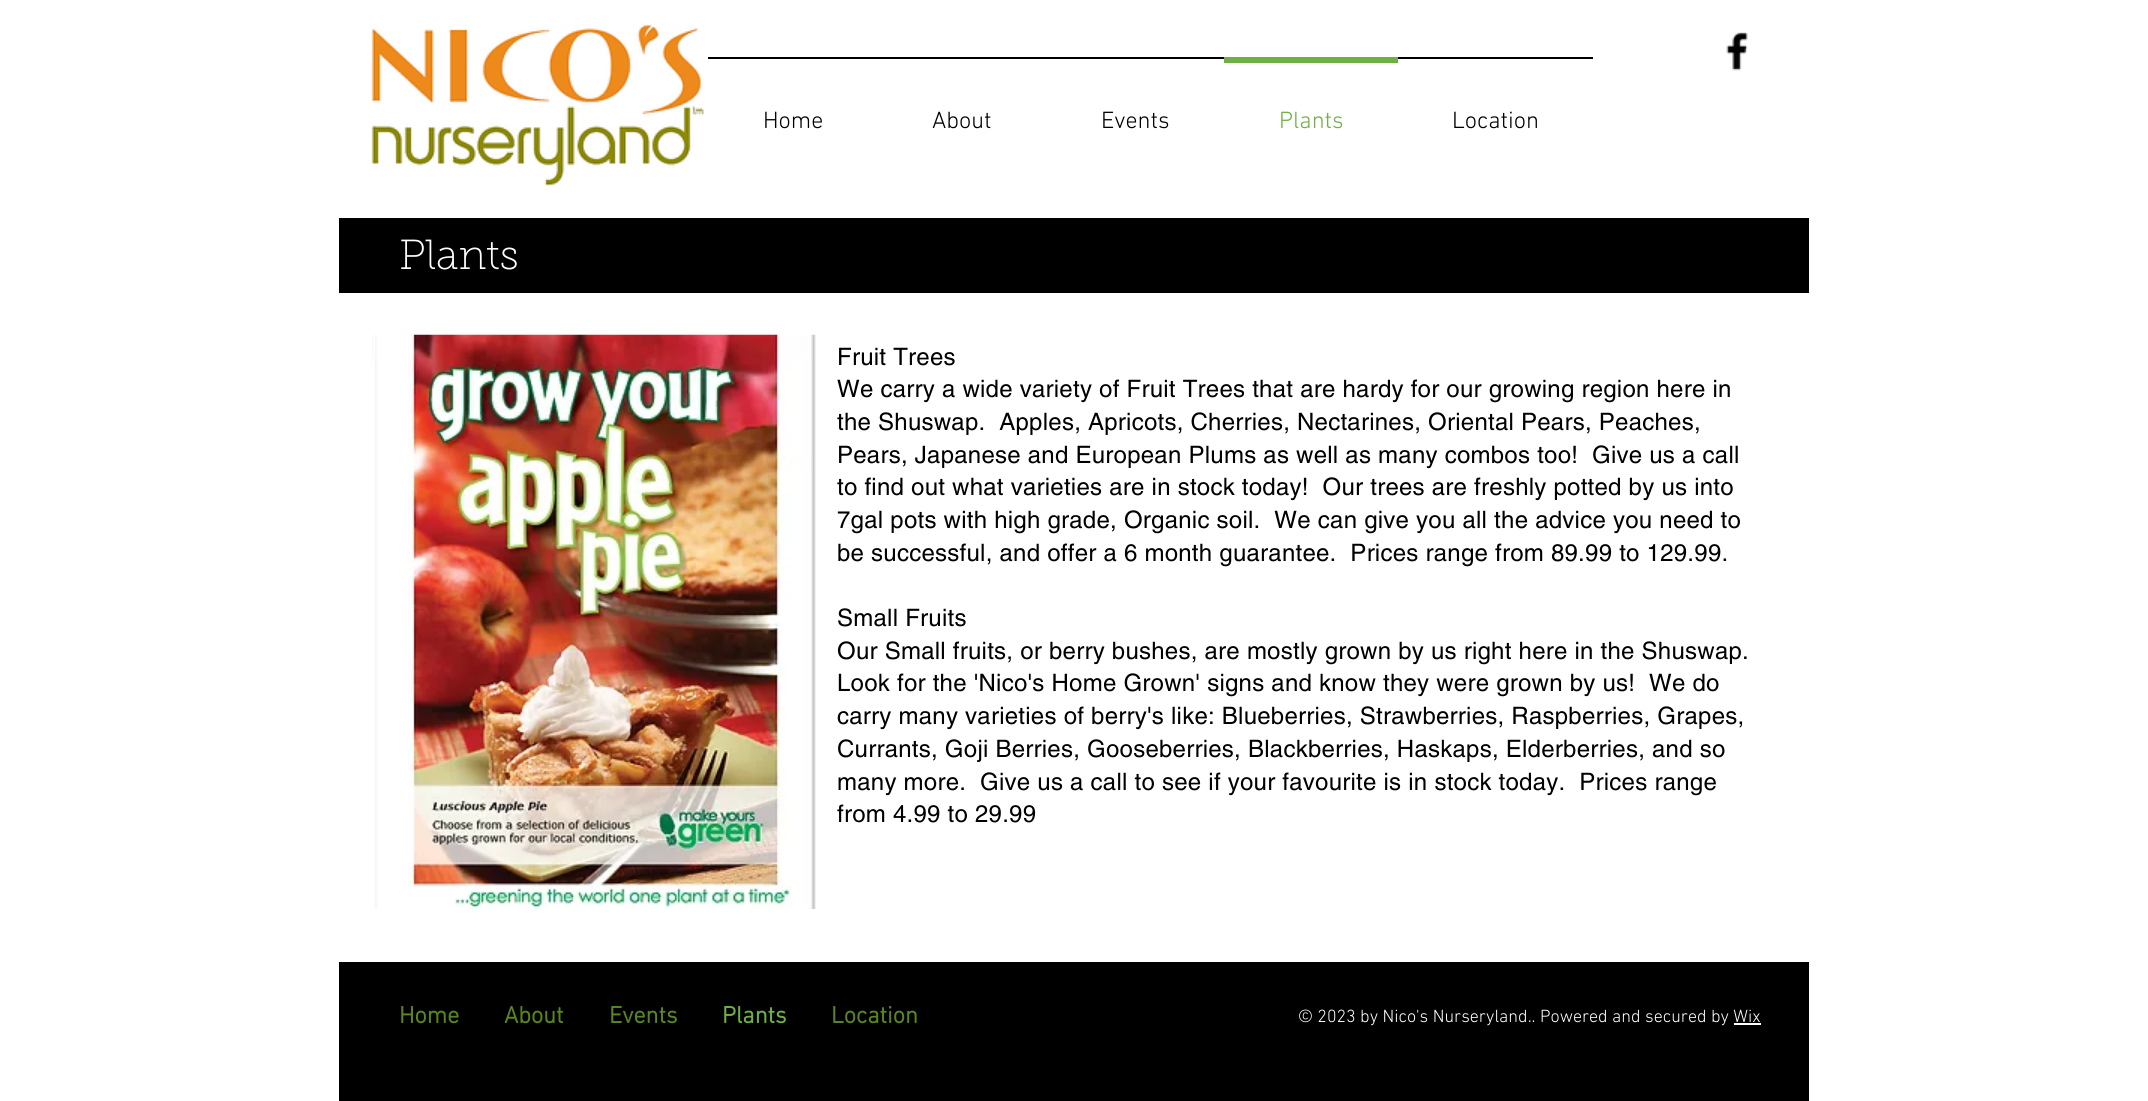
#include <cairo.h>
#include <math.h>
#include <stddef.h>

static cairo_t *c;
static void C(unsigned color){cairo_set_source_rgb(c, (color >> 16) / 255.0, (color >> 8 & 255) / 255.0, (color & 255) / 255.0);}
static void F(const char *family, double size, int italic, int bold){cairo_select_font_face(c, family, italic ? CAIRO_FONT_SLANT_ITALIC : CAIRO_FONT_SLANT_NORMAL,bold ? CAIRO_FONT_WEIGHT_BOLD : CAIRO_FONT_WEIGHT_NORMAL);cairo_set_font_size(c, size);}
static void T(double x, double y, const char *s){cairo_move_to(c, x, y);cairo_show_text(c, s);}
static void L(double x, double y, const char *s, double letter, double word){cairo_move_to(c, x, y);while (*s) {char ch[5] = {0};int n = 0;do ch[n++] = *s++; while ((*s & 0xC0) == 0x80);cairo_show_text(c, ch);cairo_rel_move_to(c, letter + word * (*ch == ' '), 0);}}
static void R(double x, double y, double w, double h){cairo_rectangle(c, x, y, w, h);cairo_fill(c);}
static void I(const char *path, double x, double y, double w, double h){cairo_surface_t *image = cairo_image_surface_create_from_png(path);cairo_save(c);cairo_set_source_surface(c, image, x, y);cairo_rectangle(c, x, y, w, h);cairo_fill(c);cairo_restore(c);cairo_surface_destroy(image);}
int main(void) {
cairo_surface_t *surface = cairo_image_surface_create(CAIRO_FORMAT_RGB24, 2148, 1101);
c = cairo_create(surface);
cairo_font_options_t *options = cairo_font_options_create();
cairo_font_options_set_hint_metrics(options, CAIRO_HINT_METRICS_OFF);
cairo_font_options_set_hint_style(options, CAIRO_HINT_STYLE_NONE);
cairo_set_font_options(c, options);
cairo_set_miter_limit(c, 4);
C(0xffffff);
cairo_paint(c);
I("1.png",371,24,333,163);
I("2.png",1726,32,22,39);
C(0x000000);
R(708,57,516,2);
F("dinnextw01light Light",24,0,0);
T(763,128,"Home");
T(932,128,"About");
T(1101,128,"Events");
C(0x6faf46);
R(1224,57,174,6);
T(1279,128,"Plants");
C(0x000000);
R(1398,57,195,2);
T(1452,128,"Location");
R(339,218,1470,75);
F("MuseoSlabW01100 Thin",42,0,0);
C(0xffffff);
T(399,269,"Plants");
I("3.png",372,334,444,575);
F("helvetica",24,0,0);
C(0x000000);
L(837,365,"Fruit Trees",.25,0);
L(837,397,"We carry a wide variety of Fruit Trees that are hardy for our growing region here in",.25,0);
L(837,430,"the Shuswap.  Apples, Apricots, Cherries, Nectarines, Oriental Pears, Peaches,",.25,0);
L(837,463,"Pears, Japanese and European Plums as well as many combos too!  Give us a call",.25,0);
L(837,495,"to find out what varieties are in stock today!  Our trees are freshly potted by us into",.25,0);
L(837,528,"7gal pots with high grade, Organic soil.  We can give you all the advice you need to",.25,0);
L(837,561,"be successful, and offer a 6 month guarantee.  Prices range from 89.99 to 129.99.",.25,0);
L(837,626,"Small Fruits",.25,0);
L(837,659,"Our Small fruits, or berry bushes, are mostly grown by us right here in the Shuswap.",.25,0);
L(837,691,"Look for the 'Nico's Home Grown' signs and know they were grown by us!  We do",.25,0);
L(837,724,"carry many varieties of berry's like: Blueberries, Strawberries, Raspberries, Grapes,",.25,0);
L(837,757,"Currants, Goji Berries, Gooseberries, Blackberries, Haskaps, Elderberries, and so",.25,0);
L(837,790,"many more.  Give us a call to see if your favourite is in stock today.  Prices range",.25,0);
L(837,822,"from 4.99 to 29.99",.25,0);
R(339,962,1470,139);
F("dinnextw01light",24,0,1);
C(0x588522);
T(399,1023,"Home");
T(504,1023,"About");
T(609,1023,"Events");
C(0x6faf46);
T(722,1023,"Plants");
C(0x588522);
T(831,1023,"Location");
F("dinnextw01light Light",18,0,0);
C(0xffffff);
T(1298,1022,"© 2023 by Nico's Nurseryland.. Powered and secured by Wix");
R(1734,1023,27,2);
cairo_surface_write_to_png(surface, "o.png");
cairo_font_options_destroy(options);
cairo_destroy(c);
cairo_surface_destroy(surface);
return 0;
}
